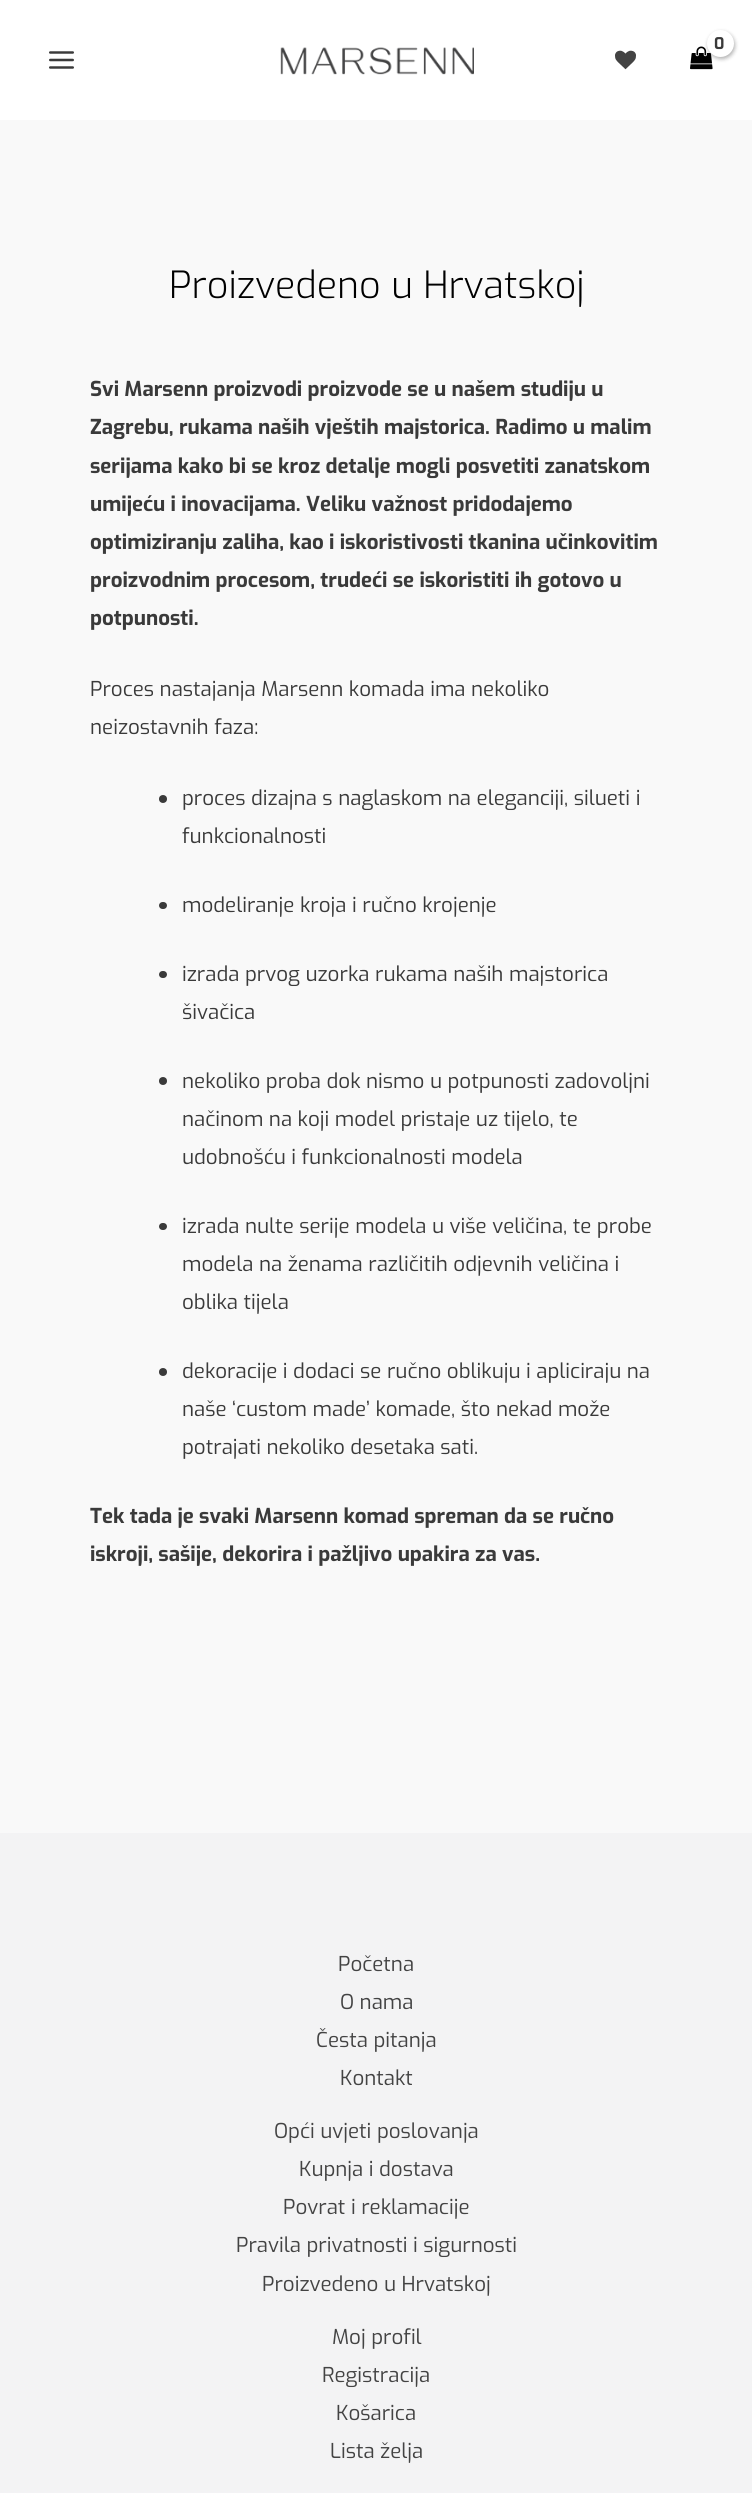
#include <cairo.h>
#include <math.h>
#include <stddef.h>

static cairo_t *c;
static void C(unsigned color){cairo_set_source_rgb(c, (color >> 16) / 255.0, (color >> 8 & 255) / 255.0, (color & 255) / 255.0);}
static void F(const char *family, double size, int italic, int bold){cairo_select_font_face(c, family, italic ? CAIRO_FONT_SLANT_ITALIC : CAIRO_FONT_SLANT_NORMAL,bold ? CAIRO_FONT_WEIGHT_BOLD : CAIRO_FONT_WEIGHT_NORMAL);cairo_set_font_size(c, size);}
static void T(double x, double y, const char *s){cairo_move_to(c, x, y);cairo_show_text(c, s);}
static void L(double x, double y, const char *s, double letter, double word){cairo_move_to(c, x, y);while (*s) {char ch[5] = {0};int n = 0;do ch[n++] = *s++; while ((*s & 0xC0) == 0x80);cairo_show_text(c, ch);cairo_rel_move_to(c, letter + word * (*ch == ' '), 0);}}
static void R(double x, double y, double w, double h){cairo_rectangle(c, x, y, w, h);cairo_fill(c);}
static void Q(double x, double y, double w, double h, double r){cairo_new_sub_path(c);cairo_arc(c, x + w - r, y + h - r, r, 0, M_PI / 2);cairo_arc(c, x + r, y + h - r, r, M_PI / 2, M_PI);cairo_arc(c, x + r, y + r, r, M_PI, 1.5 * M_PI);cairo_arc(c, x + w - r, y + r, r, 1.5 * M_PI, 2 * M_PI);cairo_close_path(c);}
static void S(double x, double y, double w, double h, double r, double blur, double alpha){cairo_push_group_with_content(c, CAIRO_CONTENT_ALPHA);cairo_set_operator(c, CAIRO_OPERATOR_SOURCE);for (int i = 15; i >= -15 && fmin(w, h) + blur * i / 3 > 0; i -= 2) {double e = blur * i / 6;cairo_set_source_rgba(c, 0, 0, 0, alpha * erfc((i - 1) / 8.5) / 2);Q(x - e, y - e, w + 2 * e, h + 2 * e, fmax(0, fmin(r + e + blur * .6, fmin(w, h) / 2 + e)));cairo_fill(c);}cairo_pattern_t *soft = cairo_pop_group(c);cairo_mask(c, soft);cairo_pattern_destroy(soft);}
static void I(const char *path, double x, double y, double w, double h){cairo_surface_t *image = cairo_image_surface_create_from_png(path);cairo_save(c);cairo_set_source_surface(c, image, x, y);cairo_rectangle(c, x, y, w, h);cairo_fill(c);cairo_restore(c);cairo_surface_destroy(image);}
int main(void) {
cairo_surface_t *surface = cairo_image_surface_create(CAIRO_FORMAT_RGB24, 752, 2493);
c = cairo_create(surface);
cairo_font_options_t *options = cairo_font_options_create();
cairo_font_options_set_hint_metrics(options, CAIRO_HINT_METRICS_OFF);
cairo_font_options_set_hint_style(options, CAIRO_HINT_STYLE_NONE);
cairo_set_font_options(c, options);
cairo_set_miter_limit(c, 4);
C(0xf9f9f9);
cairo_paint(c);
C(0xffffff);
R(0,0,752,120);
I("1.png",690,46,23,24);
C(0x000000);
S(708,32,27,27,13.5,2,.3);
C(0xffffff);
cairo_arc(c,720.5,43.5,13.5,0,2 * M_PI);
cairo_fill(c);
F("Exo",16,0,1);
C(0x3a3a3a);
L(714,49,"0",-1,0);
I("2.png",615,50,21,20);
I("3.png",49,51,25,18);
I("4.png",280,47,194,28);
F("Exo Light",37.5,0,0);
C(0x000000);
T(169,298,"Proizvedeno u Hrvatskoj");
F("Exo",20.5,0,1);
C(0x3a3a3a);
T(90,396,"Svi Marsenn proizvodi proizvode se u našem studiju u");
T(90,434,"Zagrebu, rukama naših vještih majstorica. Radimo u malim");
T(90,473,"serijama kako bi se kroz detalje mogli posvetiti zanatskom");
T(90,511,"umijeću i inovacijama. Veliku važnost pridodajemo");
T(90,549,"optimiziranju zaliha, kao i iskoristivosti tkanina učinkovitim");
T(90,587,"proizvodnim procesom, trudeći se iskoristiti ih gotovo u");
T(90,625,"potpunosti.");
F("Exo",20.5,0,0);
T(90,696,"Proces nastajanja Marsenn komada ima nekoliko");
T(90,734,"neizostavnih faza:");
cairo_new_path(c);
cairo_arc(c,163,799,4,0,2 * M_PI);
cairo_fill(c);
T(182,805,"proces dizajna s naglaskom na eleganciji, silueti i");
T(182,843,"funkcionalnosti");
Q(159,902,8,7,3.5);
cairo_fill(c);
T(182,912,"modeliranje kroja i ručno krojenje");
Q(159,971,8,7,3.5);
cairo_fill(c);
T(182,981,"izrada prvog uzorka rukama naših majstorica");
T(182,1019,"šivačica");
cairo_new_path(c);
cairo_arc(c,163,1081,4,0,2 * M_PI);
cairo_fill(c);
T(182,1088,"nekoliko proba dok nismo u potpunosti zadovoljni");
T(182,1126,"načinom na koji model pristaje uz tijelo, te");
T(182,1164,"udobnošću i funkcionalnosti modela");
Q(159,1223,8,7,3.5);
cairo_fill(c);
T(182,1233,"izrada nulte serije modela u više veličina, te probe");
T(182,1271,"modela na ženama različitih odjevnih veličina i");
T(182,1309,"oblika tijela");
cairo_new_path(c);
cairo_arc(c,163,1372,4,0,2 * M_PI);
cairo_fill(c);
T(182,1378,"dekoracije i dodaci se ručno oblikuju i apliciraju na");
T(182,1416,"naše ‘custom made’ komade, što nekad može");
T(182,1454,"potrajati nekoliko desetaka sati.");
F("Exo",20.5,0,1);
T(90,1523,"Tek tada je svaki Marsenn komad spreman da se ručno");
T(90,1561,"iskroji, sašije, dekorira i pažljivo upakira za vas.");
C(0xf3f3f4);
R(0,1833,752,660);
F("Exo",20.5,0,0);
C(0x434343);
T(338,1971,"Početna");
T(340,2009,"O nama");
T(316,2047,"Česta pitanja");
T(340,2085,"Kontakt");
T(274,2138,"Opći uvjeti poslovanja");
T(299,2176,"Kupnja i dostava");
T(283,2214,"Povrat i reklamacije");
T(236,2252,"Pravila privatnosti i sigurnosti");
T(262,2291,"Proizvedeno u Hrvatskoj");
T(332,2344,"Moj profil");
T(322,2382,"Registracija");
T(336,2420,"Košarica");
T(330,2458,"Lista želja");
cairo_surface_write_to_png(surface, "o.png");
cairo_font_options_destroy(options);
cairo_destroy(c);
cairo_surface_destroy(surface);
return 0;
}
